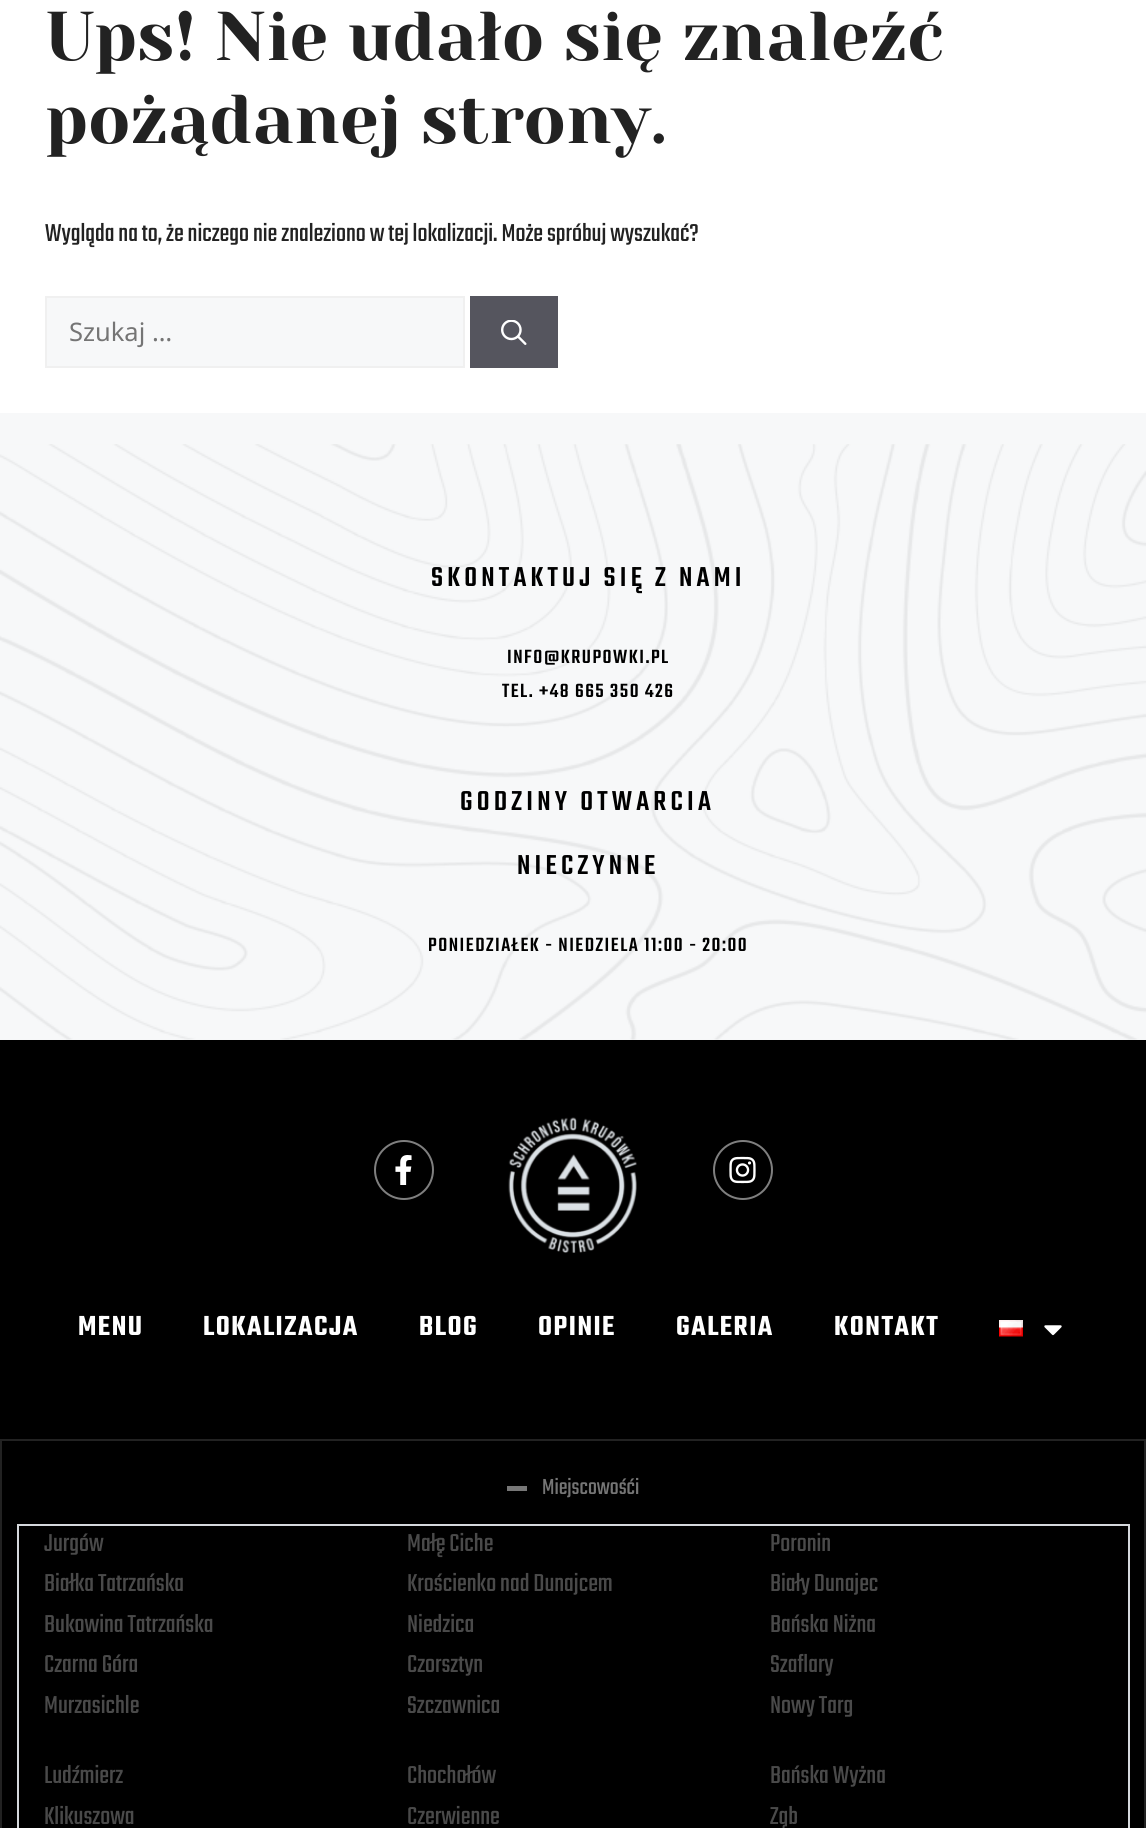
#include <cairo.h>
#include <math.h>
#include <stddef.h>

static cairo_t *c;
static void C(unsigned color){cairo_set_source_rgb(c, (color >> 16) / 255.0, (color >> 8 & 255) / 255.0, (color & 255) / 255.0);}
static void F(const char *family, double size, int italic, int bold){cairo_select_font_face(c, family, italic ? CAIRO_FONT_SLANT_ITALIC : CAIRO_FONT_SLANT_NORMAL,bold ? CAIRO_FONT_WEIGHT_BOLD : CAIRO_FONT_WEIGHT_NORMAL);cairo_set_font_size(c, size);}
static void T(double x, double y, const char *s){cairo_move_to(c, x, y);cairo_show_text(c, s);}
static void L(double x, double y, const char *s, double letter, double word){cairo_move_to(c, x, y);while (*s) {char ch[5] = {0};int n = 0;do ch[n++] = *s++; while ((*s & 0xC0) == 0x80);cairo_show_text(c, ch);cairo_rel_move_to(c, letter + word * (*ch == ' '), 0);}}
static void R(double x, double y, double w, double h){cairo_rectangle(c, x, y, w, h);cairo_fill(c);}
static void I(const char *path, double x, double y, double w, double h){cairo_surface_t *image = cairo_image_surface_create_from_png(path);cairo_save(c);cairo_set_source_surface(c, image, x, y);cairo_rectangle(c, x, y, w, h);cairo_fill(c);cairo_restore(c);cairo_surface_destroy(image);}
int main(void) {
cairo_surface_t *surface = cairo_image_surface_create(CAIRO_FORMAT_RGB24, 1146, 1828);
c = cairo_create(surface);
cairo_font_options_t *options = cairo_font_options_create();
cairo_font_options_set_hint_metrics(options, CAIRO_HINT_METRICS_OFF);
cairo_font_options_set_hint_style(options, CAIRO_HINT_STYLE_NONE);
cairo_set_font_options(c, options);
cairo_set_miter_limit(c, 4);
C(0xf7f8f9);
cairo_paint(c);
C(0xffffff);
R(0,0,1146,413);
F("Yeseva One",69,0,0);
C(0x222222);
T(45,60,"Ups! Nie udało się znaleźć");
T(45,143,"pożądanej strony.");
F("Teko",27,0,0);
T(45,241,"Wygląda na to, że niczego nie znaleziono w tej lokalizacji. Może spróbuj wyszukać?");
C(0xf7f8f9);
cairo_rectangle(c,46,297,418,70);
cairo_fill_preserve(c);
C(0xf0f0f0);
cairo_stroke(c);
F("Noto Sans",25.5,0,0);
C(0x757575);
T(69,341,"Szukaj …");
C(0x55555e);
R(470,296,88,72);
I("1.png",501,320,26,25);
I("2.png",0,444,1146,596);
F("Teko Medium",30,0,0);
C(0x000000);
L(431,586,"SKONTAKTUJ SIĘ Z NAMI",4.2,0);
F("Teko Medium",21,0,0);
L(507,663,"INFO@KRUPOWKI.PL",1.5,0);
L(502,697,"TEL. +48 665 350 426",1.5,0);
F("Teko Medium",30,0,0);
L(460,810,"GODZINY OTWARCIA",4.2,0);
L(517,874,"NIECZYNNE",4.2,0);
F("Teko Medium",21,0,0);
L(428,951,"PONIEDZIAŁEK - NIEDZIELA 11:00 - 20:00",1.5,0);
R(0,1040,1146,399);
cairo_new_path(c);
cairo_arc(c,404,1170,29,0,2 * M_PI);
C(0x7f7f7f);
cairo_stroke(c);
I("3.png",395,1155,17,30);
I("4.png",508,1117,129,136);
cairo_arc(c,743,1170,29,0,2 * M_PI);
cairo_stroke(c);
I("5.png",729,1156,27,28);
F("Teko SemiBold",30,0,0);
C(0xffffff);
L(78,1335,"MENU",1.5,0);
L(203,1335,"LOKALIZACJA",1.5,0);
L(419,1335,"BLOG",1.5,0);
L(538,1335,"OPINIE",1.5,0);
L(676,1335,"GALERIA",1.5,0);
L(834,1335,"KONTAKT",1.5,0);
I("6.png",999,1320,24,17);
I("7.png",1044,1325,18,11);
C(0x000000);
cairo_rectangle(c,1,1440,1144,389);
cairo_fill_preserve(c);
C(0x222222);
cairo_stroke(c);
C(0x777777);
R(507,1486,20,5);
F("Teko",24,0,0);
C(0x757575);
T(542,1494,"Miejscowośći");
cairo_rectangle(c,18,1525,1111,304);
C(0xd5d8dc);
cairo_stroke(c);
F("Teko",27,0,0);
C(0x4a4a4a);
T(44,1551,"Jurgów");
T(44,1591,"Białka Tatrzańska");
T(44,1632,"Bukowina Tatrzańska");
T(44,1672,"Czarna Góra");
T(44,1713,"Murzasichle");
T(407,1551,"Małę Ciche");
T(407,1591,"Krościenko nad Dunajcem");
T(407,1632,"Niedzica");
T(407,1672,"Czorsztyn");
T(407,1713,"Szczawnica");
T(770,1551,"Poronin");
T(770,1591,"Biały Dunajec");
T(770,1632,"Bańska Niżna");
T(770,1672,"Szaflary");
T(770,1713,"Nowy Targ");
T(44,1783,"Ludźmierz");
T(44,1824,"Klikuszowa");
T(407,1783,"Chochołów");
T(407,1824,"Czerwienne");
T(770,1783,"Bańska Wyżna");
T(770,1824,"Ząb");
cairo_surface_write_to_png(surface, "o.png");
cairo_font_options_destroy(options);
cairo_destroy(c);
cairo_surface_destroy(surface);
return 0;
}
